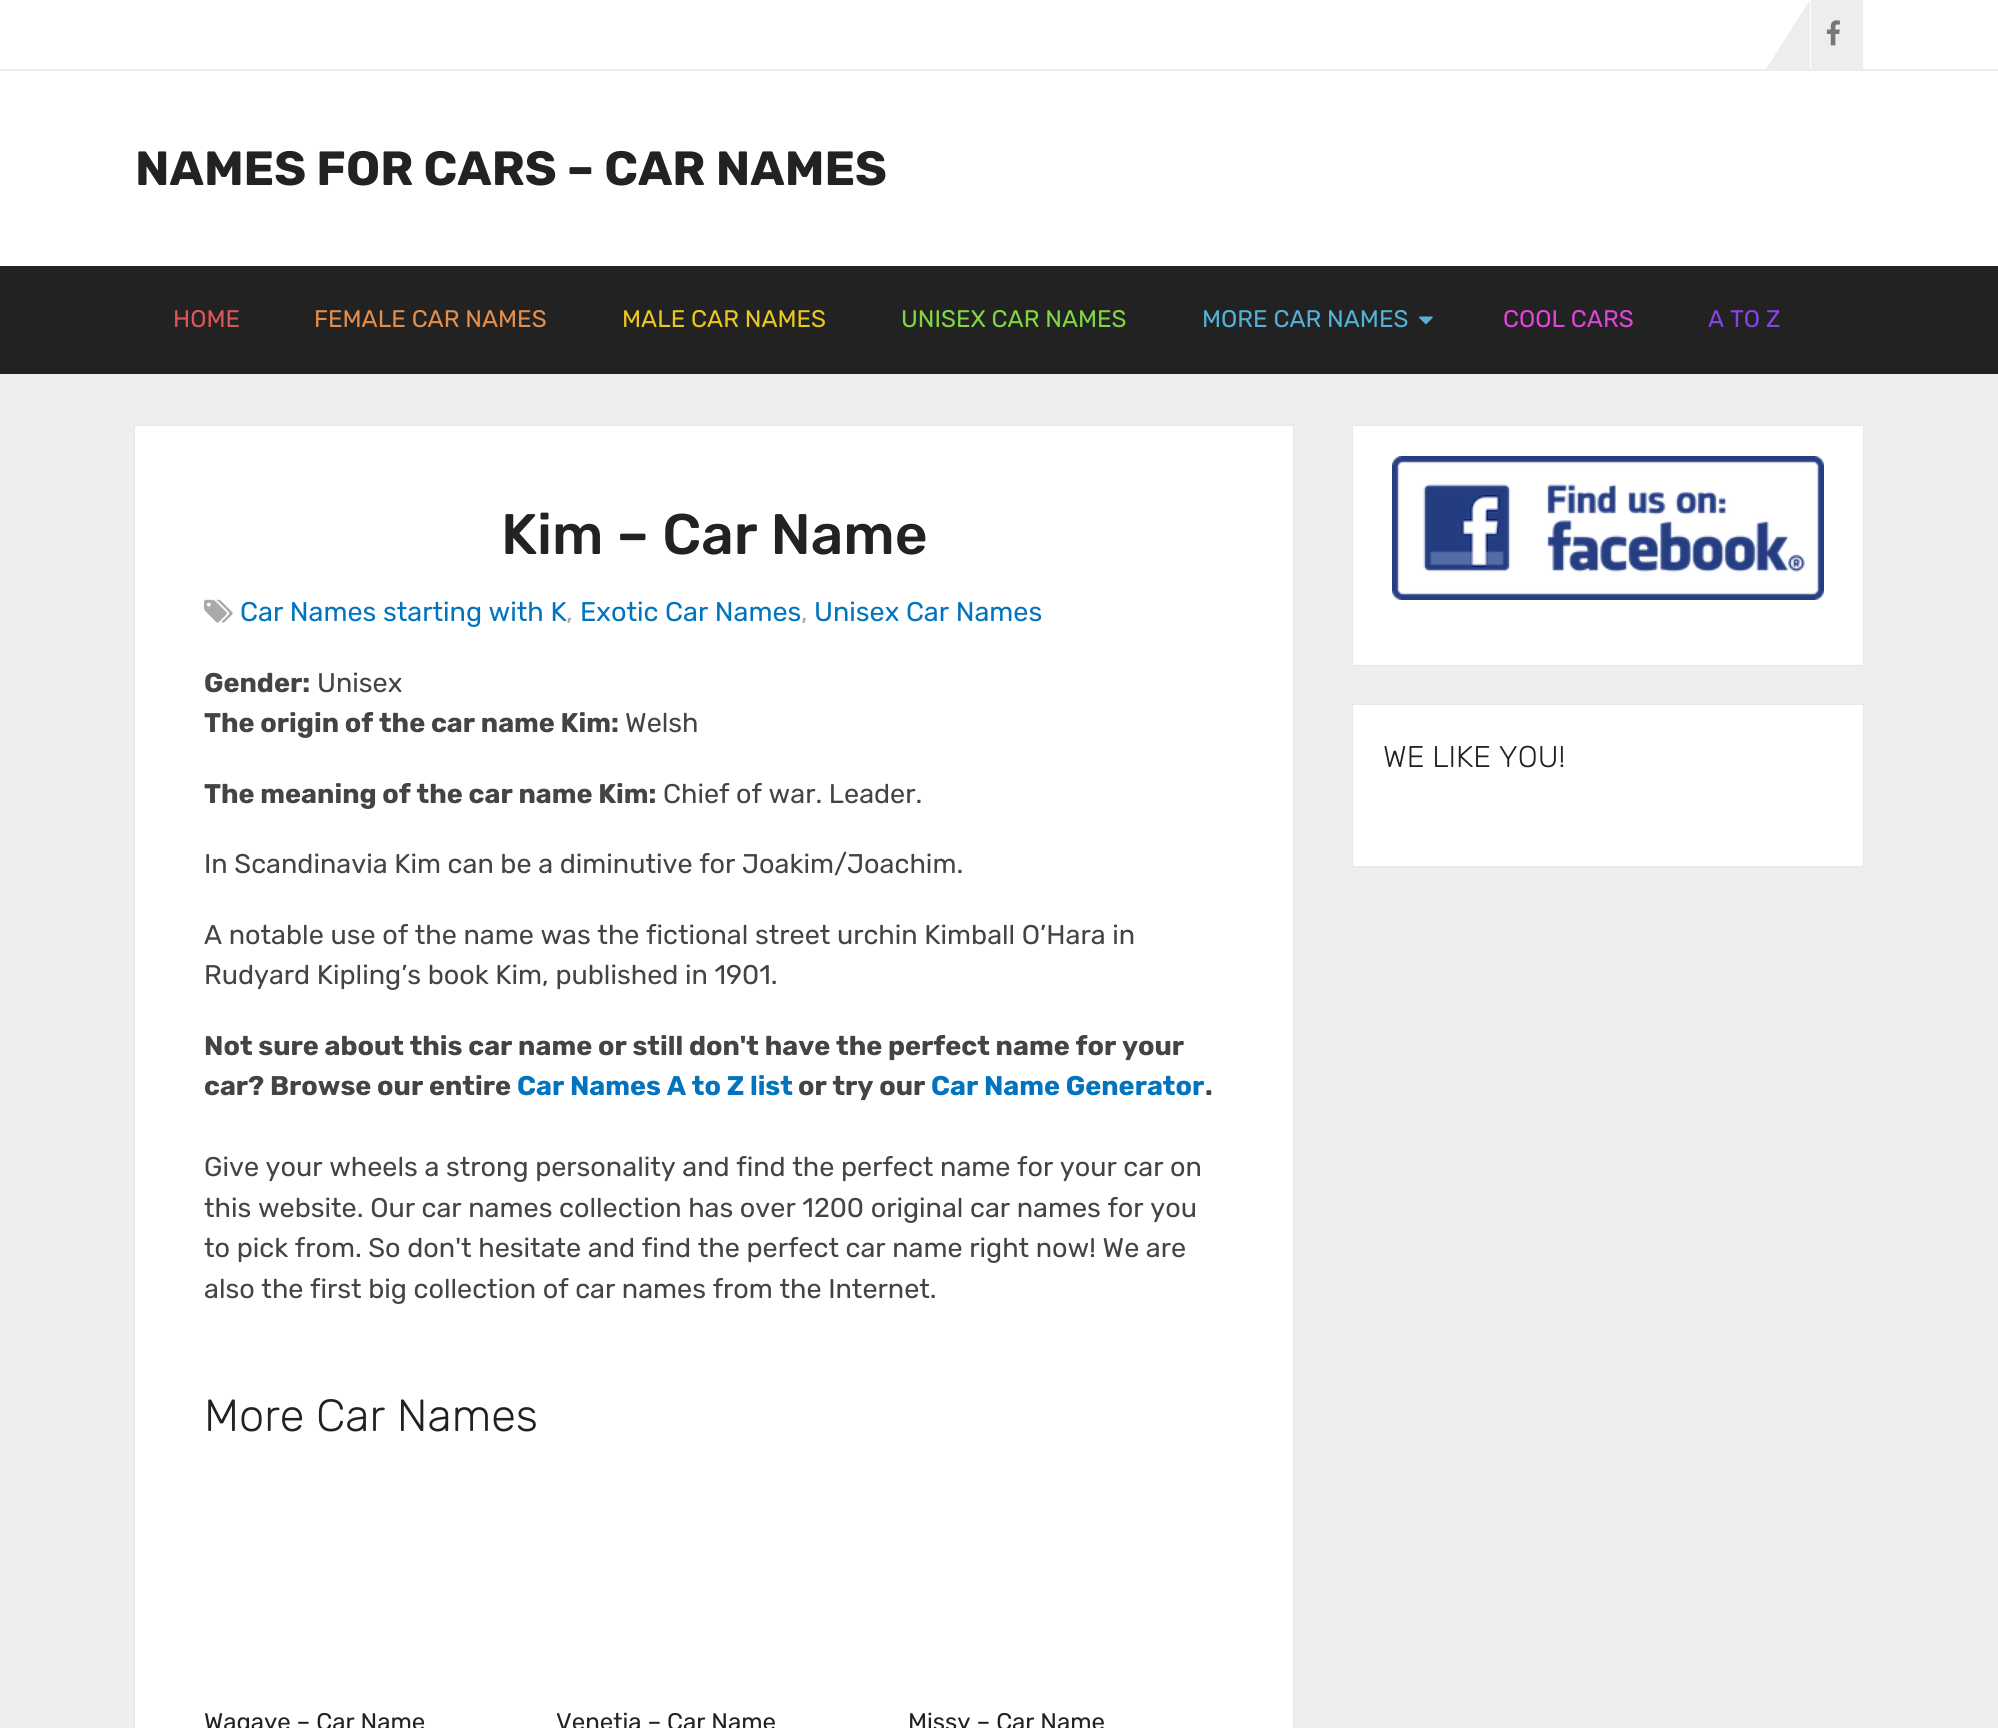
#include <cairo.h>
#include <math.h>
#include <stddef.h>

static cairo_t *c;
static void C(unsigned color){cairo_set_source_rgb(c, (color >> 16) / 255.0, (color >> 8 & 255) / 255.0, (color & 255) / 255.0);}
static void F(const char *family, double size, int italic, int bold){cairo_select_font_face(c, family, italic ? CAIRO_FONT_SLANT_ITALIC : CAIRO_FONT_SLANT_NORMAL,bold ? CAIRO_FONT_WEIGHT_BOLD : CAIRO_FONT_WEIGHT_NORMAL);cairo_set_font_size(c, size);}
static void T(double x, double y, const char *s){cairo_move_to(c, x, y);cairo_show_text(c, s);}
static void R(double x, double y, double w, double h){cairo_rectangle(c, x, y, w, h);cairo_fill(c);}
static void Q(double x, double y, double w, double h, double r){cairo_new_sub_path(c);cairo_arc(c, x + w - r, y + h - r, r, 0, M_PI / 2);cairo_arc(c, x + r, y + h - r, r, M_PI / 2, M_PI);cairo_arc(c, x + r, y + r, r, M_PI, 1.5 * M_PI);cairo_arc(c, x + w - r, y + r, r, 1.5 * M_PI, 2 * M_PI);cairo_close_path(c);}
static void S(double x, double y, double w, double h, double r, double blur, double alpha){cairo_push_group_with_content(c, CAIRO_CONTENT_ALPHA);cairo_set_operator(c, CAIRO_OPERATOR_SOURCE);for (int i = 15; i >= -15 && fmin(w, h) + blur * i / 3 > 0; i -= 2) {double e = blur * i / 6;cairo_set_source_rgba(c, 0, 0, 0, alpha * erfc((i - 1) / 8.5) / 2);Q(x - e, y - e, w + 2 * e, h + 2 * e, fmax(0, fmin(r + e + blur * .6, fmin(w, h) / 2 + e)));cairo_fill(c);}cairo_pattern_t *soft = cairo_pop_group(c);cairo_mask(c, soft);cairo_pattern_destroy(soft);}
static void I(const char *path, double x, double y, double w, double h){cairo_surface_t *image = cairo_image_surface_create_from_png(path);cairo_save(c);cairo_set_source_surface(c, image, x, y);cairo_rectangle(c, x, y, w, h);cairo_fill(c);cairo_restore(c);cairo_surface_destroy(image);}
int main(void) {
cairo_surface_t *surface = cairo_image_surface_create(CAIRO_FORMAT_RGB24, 1998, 1728);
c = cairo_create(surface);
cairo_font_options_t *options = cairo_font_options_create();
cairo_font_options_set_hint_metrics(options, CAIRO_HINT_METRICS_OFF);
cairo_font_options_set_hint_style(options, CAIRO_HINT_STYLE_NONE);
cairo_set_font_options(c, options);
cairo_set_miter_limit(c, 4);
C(0xeeeeee);
cairo_paint(c);
C(0xffffff);
R(0,0,1998,266);
C(0xededed);
R(0,69,1998,2);
R(1811,0,52,69);
cairo_new_path(c);
cairo_move_to(c,1810,0);
cairo_line_to(c,1810,69);
cairo_line_to(c,1766,69);
cairo_close_path(c);
cairo_fill(c);
I("1.png",1826,20,14,26);
F("Rubik",48,0,1);
C(0x222222);
T(135,185,"NAMES FOR CARS – CAR NAMES");
R(0,266,1998,108);
F("Rubik",24,0,0);
C(0xdd5656);
T(173,327,"HOME");
C(0xe58e4b);
T(314,327,"FEMALE CAR NAMES");
C(0xeac820);
T(622,327,"MALE CAR NAMES");
C(0x81d742);
T(901,327,"UNISEX CAR NAMES");
C(0x54b1d8);
T(1202,327,"MORE CAR NAMES");
I("2.png",1419,316,14,9);
C(0xe045db);
T(1503,327,"COOL CARS");
C(0x8744e5);
T(1708,327,"A TO Z");
C(0x323232);
S(135,426,1158,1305,0,1,.1);
C(0xffffff);
R(135,426,1158,1302);
F("Rubik Medium",57,0,0);
C(0x222222);
T(501,554,"Kim – Car Name");
I("3.png",204,599,29,24);
F("Rubik",27,0,0);
C(0x0274be);
T(240,621,"Car Names starting with K");
C(0xaaaaaa);
T(566,621,",");
C(0x0274be);
T(580,621,"Exotic Car Names");
C(0xaaaaaa);
T(801,621,",");
C(0x0274be);
T(814,621,"Unisex Car Names");
F("Rubik",27,0,1);
C(0x444444);
T(204,692,"Gender:");
F("Rubik",27,0,0);
T(317,692,"Unisex");
F("Rubik",27,0,1);
T(204,732,"The origin of the car name Kim:");
F("Rubik",27,0,0);
T(625,732,"Welsh");
F("Rubik",27,0,1);
T(204,803,"The meaning of the car name Kim:");
F("Rubik",27,0,0);
T(663,803,"Chief of war. Leader.");
T(204,873,"In Scandinavia Kim can be a diminutive for Joakim/Joachim.");
T(204,944,"A notable use of the name was the fictional street urchin Kimball O’Hara in");
T(204,984,"Rudyard Kipling’s book Kim, published in 1901.");
F("Rubik",27,0,1);
T(204,1055,"Not sure about this car name or still don't have the perfect name for your");
T(204,1095,"car? Browse our entire");
C(0x0274be);
T(517,1095,"Car Names A to Z list");
C(0x444444);
T(798,1095,"or try our");
C(0x0274be);
T(931,1095,"Car Name Generator");
C(0x444444);
T(1205,1095,".");
F("Rubik",27,0,0);
T(204,1176,"Give your wheels a strong personality and find the perfect name for your car on");
T(204,1217,"this website. Our car names collection has over 1200 original car names for you");
T(204,1257,"to pick from. So don't hesitate and find the perfect car name right now! We are");
T(204,1298,"also the first big collection of car names from the Internet.");
F("Rubik Light",45,0,0);
C(0x222222);
T(204,1431,"More Car Names");
F("Rubik",24,0,0);
T(204,1730,"Wagaye – Car Name");
T(556,1730,"Venetia – Car Name");
T(908,1730,"Missy – Car Name");
C(0x323232);
S(1353,426,510,239,0,1,.1);
C(0xffffff);
R(1353,426,510,239);
I("4.png",1392,456,432,144);
C(0x323232);
S(1353,705,510,161,0,1,.1);
C(0xffffff);
R(1353,705,510,161);
F("Rubik Light",30,0,0);
C(0x222222);
T(1383,767,"WE LIKE YOU!");
cairo_surface_write_to_png(surface, "o.png");
cairo_font_options_destroy(options);
cairo_destroy(c);
cairo_surface_destroy(surface);
return 0;
}
